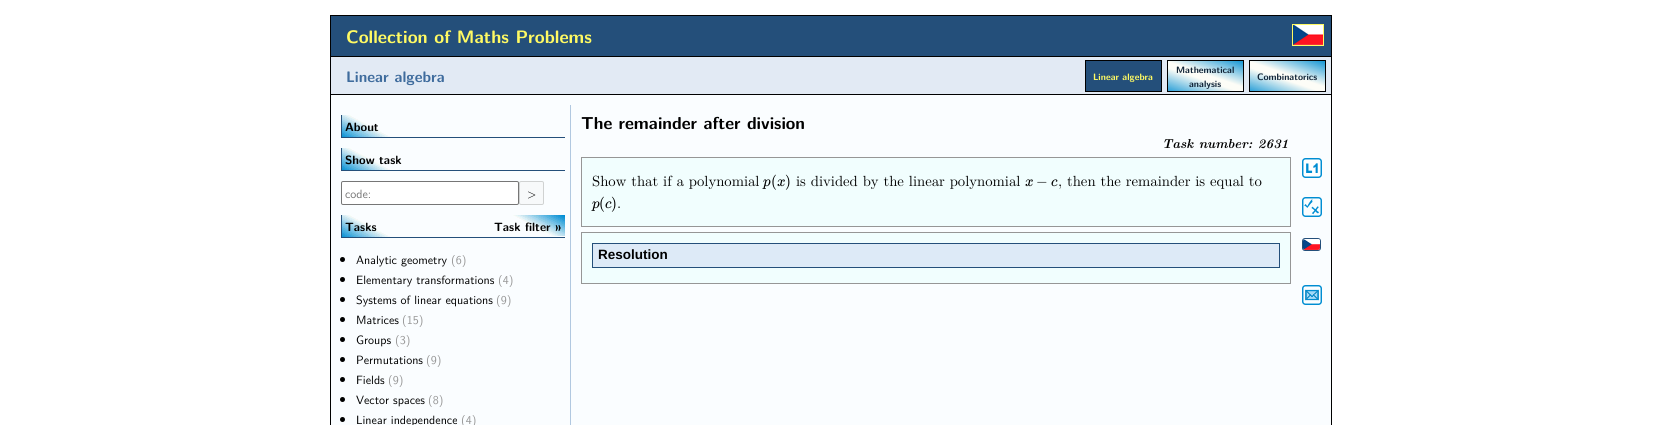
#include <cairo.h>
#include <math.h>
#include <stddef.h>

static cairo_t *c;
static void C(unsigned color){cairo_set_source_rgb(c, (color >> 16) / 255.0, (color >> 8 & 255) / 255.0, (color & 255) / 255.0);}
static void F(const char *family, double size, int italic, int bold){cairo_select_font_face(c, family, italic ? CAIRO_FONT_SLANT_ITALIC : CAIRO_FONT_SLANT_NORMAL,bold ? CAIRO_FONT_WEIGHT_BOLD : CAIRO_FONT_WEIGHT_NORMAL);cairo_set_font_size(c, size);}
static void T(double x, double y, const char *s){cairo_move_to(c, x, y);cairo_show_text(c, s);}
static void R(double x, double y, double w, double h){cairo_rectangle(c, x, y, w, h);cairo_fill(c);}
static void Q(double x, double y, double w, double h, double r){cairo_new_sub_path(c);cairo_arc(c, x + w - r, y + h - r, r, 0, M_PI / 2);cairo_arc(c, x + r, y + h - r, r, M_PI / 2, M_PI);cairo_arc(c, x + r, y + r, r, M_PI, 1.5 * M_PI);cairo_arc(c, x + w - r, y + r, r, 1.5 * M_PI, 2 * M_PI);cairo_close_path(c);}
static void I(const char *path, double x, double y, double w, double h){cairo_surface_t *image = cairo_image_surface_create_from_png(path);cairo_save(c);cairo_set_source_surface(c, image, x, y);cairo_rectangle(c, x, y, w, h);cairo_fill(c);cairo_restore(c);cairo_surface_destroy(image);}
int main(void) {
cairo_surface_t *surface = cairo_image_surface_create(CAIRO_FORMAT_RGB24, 1661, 425);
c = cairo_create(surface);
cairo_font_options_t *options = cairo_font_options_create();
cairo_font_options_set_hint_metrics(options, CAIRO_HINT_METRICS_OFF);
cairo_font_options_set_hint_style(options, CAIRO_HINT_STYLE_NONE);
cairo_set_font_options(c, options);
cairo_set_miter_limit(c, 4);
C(0xffffff);
cairo_paint(c);
C(0xfafdff);
R(331,95,1000,330);
cairo_rectangle(c,330.5,15.5,1001,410);
C(0x000000);
cairo_set_line_width(c,1);
cairo_stroke(c);
C(0x244f7a);
R(331,16,1000,40);
cairo_rectangle(c,1292.5,24.5,31,21);
C(0xfffa63);
cairo_stroke(c);
I("1.png",1293,25,30,20);
C(0x000000);
R(331,56,1000,1);
F("Latin Modern Sans",18,0,1);
C(0xfffa63);
T(346,43,"Collection of Maths Problems");
C(0xe2eaf4);
R(331,57,1000,37);
C(0x000000);
R(331,94,1000,1);
F("Latin Modern Sans",15.25,0,1);
C(0x3f6c9d);
T(346,82,"Linear algebra");
C(0x244f7a);
cairo_rectangle(c,1085.5,60.5,76,31);
cairo_fill_preserve(c);
C(0x000000);
cairo_stroke(c);
F("Latin Modern Sans",9.25,0,1);
C(0xfffa63);
T(1093,80,"Linear algebra");
I("2.png",1168,61,75,30);
cairo_rectangle(c,1167.5,60.5,76,31);
C(0x000000);
cairo_stroke(c);
C(0x112437);
T(1176,73,"Mathematical");
T(1189,87,"analysis");
I("2.png",1250,61,75,30);
cairo_rectangle(c,1249.5,60.5,76,31);
C(0x000000);
cairo_stroke(c);
C(0x112437);
T(1257,80,"Combinatorics");
C(0xb1c8e0);
R(570,105,1,320);
I("3.png",342,115,48,22);
C(0x244f7a);
R(341,137,224,1);
R(341,115,1,23);
F("Latin Modern Sans",12,0,1);
C(0x000000);
T(345,131,"About");
I("3.png",342,148,48,22);
C(0x244f7a);
R(341,170,224,1);
R(341,148,1,23);
C(0x000000);
T(345,164,"Show task");
C(0xffffff);
Q(341.5,181.5,177,23,1.5);
cairo_fill_preserve(c);
C(0x767676);
cairo_stroke(c);
F("Latin Modern Sans",12,0,0);
C(0x757575);
T(345,198,"code:");
C(0xf7f9fa);
Q(519.5,181.5,24,23,1.5);
cairo_fill_preserve(c);
C(0xd0d2d2);
cairo_stroke(c);
C(0x000000);
T(527,198,">");
I("3.png",342,215,48,22);
C(0x244f7a);
R(341,237,224,1);
R(341,215,1,23);
F("Latin Modern Sans",12,0,1);
C(0x000000);
T(345,231,"Tasks");
I("4.png",512,215,53,21);
T(494,231,"Task filter »");
cairo_new_path(c);
cairo_arc(c,342.5,259.5,2.5,0,2 * M_PI);
cairo_fill(c);
F("Latin Modern Sans",12,0,0);
T(356,264,"Analytic geometry");
C(0x969696);
T(451,264,"(6)");
C(0x000000);
cairo_new_path(c);
cairo_arc(c,342.5,279.5,2.5,0,2 * M_PI);
cairo_fill(c);
T(356,284,"Elementary transformations");
C(0x969696);
T(498,284,"(4)");
C(0x000000);
cairo_new_path(c);
cairo_arc(c,342.5,299.5,2.5,0,2 * M_PI);
cairo_fill(c);
T(356,304,"Systems of linear equations");
C(0x969696);
T(496,304,"(9)");
C(0x000000);
cairo_new_path(c);
cairo_arc(c,342.5,319.5,2.5,0,2 * M_PI);
cairo_fill(c);
T(356,324,"Matrices");
C(0x969696);
T(402,324,"(15)");
C(0x000000);
cairo_new_path(c);
cairo_arc(c,342.5,339.5,2.5,0,2 * M_PI);
cairo_fill(c);
T(356,344,"Groups");
C(0x969696);
T(395,344,"(3)");
C(0x000000);
cairo_new_path(c);
cairo_arc(c,342.5,359.5,2.5,0,2 * M_PI);
cairo_fill(c);
T(356,364,"Permutations");
C(0x969696);
T(426,364,"(9)");
C(0x000000);
cairo_new_path(c);
cairo_arc(c,342.5,379.5,2.5,0,2 * M_PI);
cairo_fill(c);
T(356,384,"Fields");
C(0x969696);
T(388,384,"(9)");
C(0x000000);
cairo_new_path(c);
cairo_arc(c,342.5,399.5,2.5,0,2 * M_PI);
cairo_fill(c);
T(356,404,"Vector spaces");
C(0x969696);
T(428,404,"(8)");
C(0x000000);
cairo_new_path(c);
cairo_arc(c,342.5,419.5,2.5,0,2 * M_PI);
cairo_fill(c);
T(356,424,"Linear independence");
C(0x969696);
T(461,424,"(4)");
F("Latin Modern Sans",17.3,0,1);
C(0x000000);
T(581,129,"The remainder after division");
F("Latin Modern Roman",13,1,1);
T(1162,148,"Task number: 2631");
C(0xf1fefe);
cairo_rectangle(c,581.5,157.5,709,69);
cairo_fill_preserve(c);
C(0x969696);
cairo_stroke(c);
F("Latin Modern Roman",14.7,0,0);
C(0x000000);
T(592,186,"Show that if a polynomial");
F("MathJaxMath",15,1,0);
T(763,186,"p");
F("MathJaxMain",15,0,0);
T(771,186,"(");
F("MathJaxMath",15,1,0);
T(777,186,"x");
F("MathJaxMain",15,0,0);
T(785,186,")");
F("Latin Modern Roman",14.7,0,0);
T(796,186,"is divided by the linear polynomial");
F("MathJaxMath",15,1,0);
T(1025,186,"x");
F("MathJaxMain",15,0,0);
T(1036,186,"−");
F("MathJaxMath",15,1,0);
T(1051,186,"c");
F("Latin Modern Roman",14.7,0,0);
T(1058,186,", then the remainder is equal to");
F("MathJaxMath",15,1,0);
T(592,208,"p");
F("MathJaxMain",15,0,0);
T(599,208,"(");
F("MathJaxMath",15,1,0);
T(605,208,"c");
F("MathJaxMain",15,0,0);
T(611,208,")");
F("Latin Modern Roman",14.7,0,0);
T(617,208,".");
C(0xf1fefe);
cairo_rectangle(c,581.5,232.5,709,51);
cairo_fill_preserve(c);
C(0x969696);
cairo_stroke(c);
C(0xddeaf7);
cairo_rectangle(c,592.5,243.5,687,24);
cairo_fill_preserve(c);
C(0x244f7a);
cairo_stroke(c);
F("Liberation Sans",13.5,0,1);
C(0x000000);
T(598,259,"Resolution");
I("5.png",1302,158,20,20);
I("6.png",1302,197,20,20);
Q(1302.5,238.5,18,12,2.5);
C(0x244f7a);
cairo_stroke(c);
I("7.png",1303,239,17,11);
I("8.png",1302,285,20,20);
cairo_surface_write_to_png(surface, "o.png");
cairo_font_options_destroy(options);
cairo_destroy(c);
cairo_surface_destroy(surface);
return 0;
}
